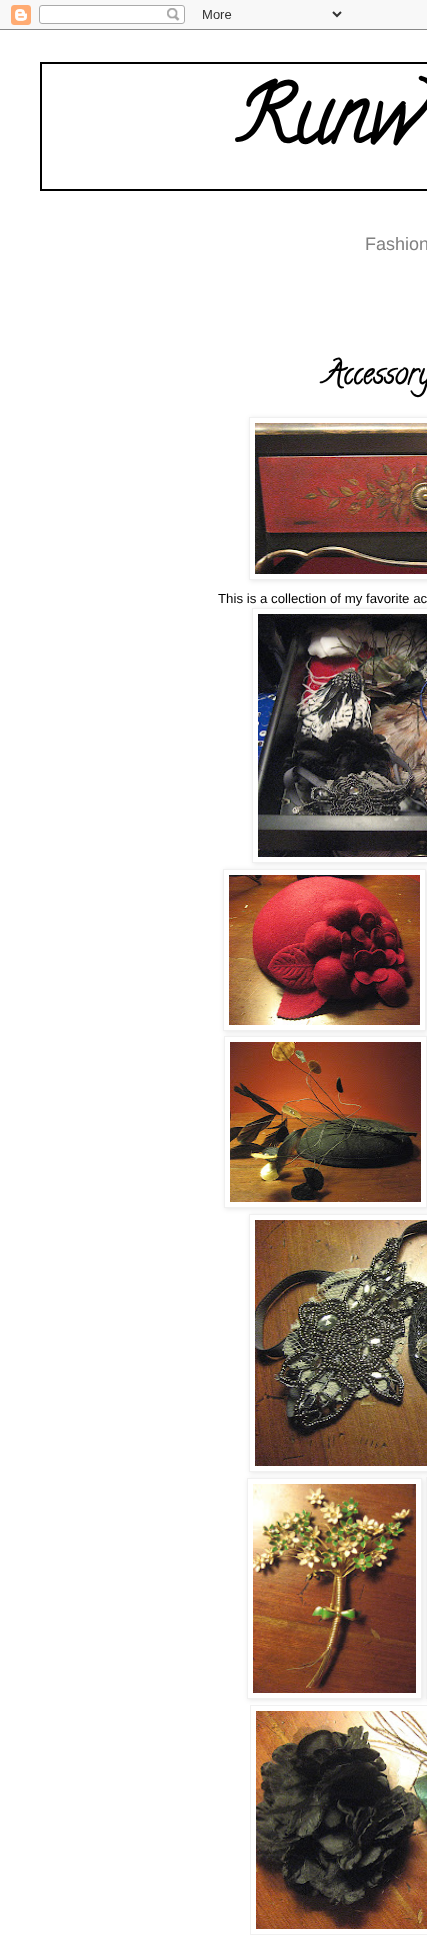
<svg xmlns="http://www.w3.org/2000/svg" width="427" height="1935">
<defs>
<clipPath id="clip1"><path d="M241 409h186v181h-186zm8 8h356v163h-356z" clip-rule="evenodd"/></clipPath>
<clipPath id="clip2"><path d="M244 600h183v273h-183zm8 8h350v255h-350z" clip-rule="evenodd"/></clipPath>
<clipPath id="clip3"><path d="M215 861h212v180h-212zm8 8h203v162h-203z" clip-rule="evenodd"/></clipPath>
<clipPath id="clip4"><path d="M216 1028h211v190h-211zm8 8h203v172h-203z" clip-rule="evenodd"/></clipPath>
<clipPath id="clip5"><path d="M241 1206h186v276h-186zm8 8h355v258h-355z" clip-rule="evenodd"/></clipPath>
<clipPath id="clip6"><path d="M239 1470h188v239h-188zm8 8h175v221h-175z" clip-rule="evenodd"/></clipPath>
</defs>
<rect width="100%" height="100%" fill="#f3f3f3"/>
<image x="0" y="0" width="427" height="30" href="media/1.png"/>
<rect y="30" width="427" height="1905" fill="#fff"/>
<rect x="41" y="63" width="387" height="127" fill="none" stroke="#000" stroke-width="2"/>
<text x="235" y="141" style="font-family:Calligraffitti;font-size:80px;font-weight:bold;fill:#000">Runw</text>
<text x="365" y="250" style="font-family:Liberation Sans;font-size:18px;fill:#818181">Fashion</text>
<text x="324" y="383" style="font-family:Calligraffitti;font-size:30px;font-weight:bold;fill:#000">Accessory</text>
<g clip-path="url(#clip1)">
<rect x="250" y="418" width="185" height="163" fill="#0000001a" filter="blur(2.5px)"/>
</g>
<rect x="249.5" y="417.5" width="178" height="162" fill="none" stroke="#f0f0f0"/>
<image x="255" y="423" width="172" height="151" href="media/2.png"/>
<text x="218" y="603" style="font-family:Liberation Sans;font-size:13.25px;fill:#000">This is a collection of my favorite ac</text>
<g clip-path="url(#clip2)">
<rect x="253" y="609" width="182" height="255" fill="#0000001a" filter="blur(2.5px)"/>
</g>
<rect x="252.5" y="608.5" width="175" height="254" fill="none" stroke="#f0f0f0"/>
<image x="258" y="614" width="169" height="243" href="media/3.png"/>
<g clip-path="url(#clip3)">
<rect x="224" y="870" width="203" height="162" fill="#0000001a" filter="blur(2.5px)"/>
</g>
<rect x="223.5" y="869.5" width="202" height="161" fill="none" stroke="#f0f0f0"/>
<image x="229" y="875" width="191" height="150" href="media/4.png"/>
<g clip-path="url(#clip4)">
<rect x="225" y="1037" width="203" height="172" fill="#0000001a" filter="blur(2.5px)"/>
</g>
<rect x="224.5" y="1036.5" width="202" height="171" fill="none" stroke="#f0f0f0"/>
<image x="230" y="1042" width="191" height="160" href="media/5.png"/>
<g clip-path="url(#clip5)">
<rect x="250" y="1215" width="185" height="258" fill="#0000001a" filter="blur(2.5px)"/>
</g>
<rect x="249.5" y="1214.5" width="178" height="257" fill="none" stroke="#f0f0f0"/>
<image x="255" y="1220" width="172" height="246" href="media/6.png"/>
<g clip-path="url(#clip6)">
<rect x="248" y="1479" width="175" height="221" fill="#0000001a" filter="blur(2.5px)"/>
</g>
<rect x="247.5" y="1478.5" width="174" height="220" fill="none" stroke="#f0f0f0"/>
<rect x="427" y="1478" width="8" height="222" fill="#0000001a" filter="blur(2.5px)"/>
<rect x="426.5" y="1477.5" width="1" height="221" fill="none" stroke="#f0f0f0"/>
<image x="253" y="1484" width="163" height="209" href="media/7.png"/>
<rect x="250.5" y="1705.5" width="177" height="229" fill="none" stroke="#f0f0f0"/>
<image x="256" y="1711" width="171" height="218" href="media/8.png"/>
</svg>
